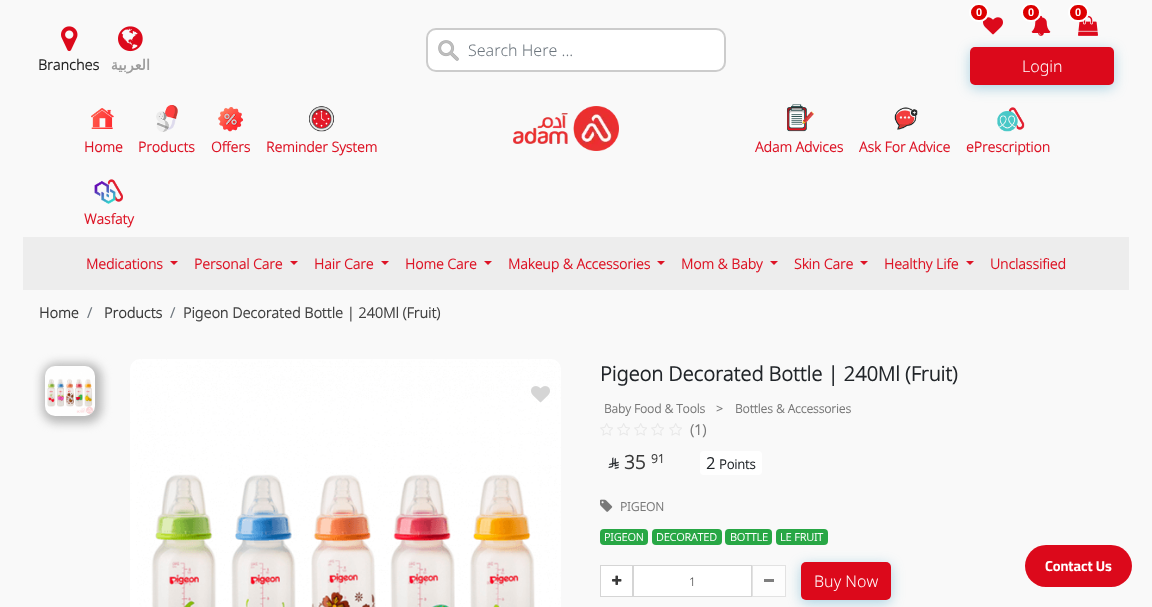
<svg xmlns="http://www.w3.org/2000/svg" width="1152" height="607">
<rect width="100%" height="100%" fill="#f9f9f9"/>
<rect x="428" y="30" width="296" height="40" rx="8" fill="#fff"/>
<image x="438" y="40" width="21" height="21" href="media/1.png"/>
<rect x="427" y="29" width="298" height="42" rx="9" fill="none" stroke="#ccc" stroke-width="2"/>
<text x="468" y="56" style="font-family:Noto Sans;font-size:16px;font-weight:300;fill:#6c757d">Search Here ...</text>
<image x="983" y="17" width="20" height="18" href="media/2.png"/>
<rect x="970" y="4" width="18" height="17" rx="8.5" fill="#d00" stroke="#fff" stroke-width="2"/>
<text x="976" y="16" style="font-family:Liberation Sans;font-size:11px;font-weight:bold;fill:#fff">0</text>
<image x="1031" y="15" width="20" height="21" href="media/3.png"/>
<rect x="1022" y="4" width="18" height="17" rx="8.5" fill="#d00" stroke="#fff" stroke-width="2"/>
<text x="1028" y="16" style="font-family:Liberation Sans;font-size:11px;font-weight:bold;fill:#fff">0</text>
<image x="1078" y="15" width="20" height="21" href="media/4.png"/>
<rect x="1069" y="4" width="19" height="17" rx="8.5" fill="#d00" stroke="#fff" stroke-width="2"/>
<text x="1075" y="16" style="font-family:Liberation Sans;font-size:11px;font-weight:bold;fill:#fff">0</text>
<rect x="970" y="50" width="144" height="38" rx="5" fill="#2a92bd61" filter="blur(6.5px)"/>
<rect x="970" y="47" width="144" height="38" rx="5" fill="#dc091b"/>
<text x="1022" y="72" style="font-family:Noto Sans;font-size:16px;font-weight:300;fill:#fff">Login</text>
<image x="61" y="26" width="17" height="26" href="media/5.png"/>
<text x="38" y="70" style="font-family:Noto Sans;font-size:14.4px;font-weight:bold;fill:#1f1f1f">Branches</text>
<image x="118" y="26" width="25" height="26" href="media/6.png"/>
<text x="150" y="70" style="font-family:DejaVu Sans;font-size:14.4px;font-weight:bold;direction:rtl;fill:#9d9d9d">العربية</text>
<image x="91" y="108" width="23" height="21" href="media/7.png"/>
<text x="84" y="152" style="font-family:Noto Sans;font-size:14px;font-weight:bold;fill:#dd1526">Home</text>
<image x="156" y="105" width="22" height="27" href="media/8.png"/>
<text x="138" y="152" style="font-family:Noto Sans;font-size:14px;font-weight:bold;fill:#dd1526">Products</text>
<image x="218" y="107" width="25" height="25" href="media/9.png"/>
<text x="211" y="152" style="font-family:Noto Sans;font-size:14px;font-weight:bold;fill:#dd1526">Offers</text>
<image x="309" y="106" width="25" height="26" href="media/10.png"/>
<text x="266" y="152" style="font-family:Noto Sans;font-size:14px;font-weight:bold;fill:#dd1526">Reminder System</text>
<image x="513" y="106" width="106" height="45" href="media/11.png"/>
<image x="787" y="104" width="27" height="28" href="media/12.png"/>
<text x="755" y="152" style="font-family:Noto Sans;font-size:14px;font-weight:bold;fill:#dd1526">Adam Advices</text>
<image x="894" y="107" width="24" height="23" href="media/13.png"/>
<text x="859" y="152" style="font-family:Noto Sans;font-size:14px;font-weight:bold;fill:#dd1526">Ask For Advice</text>
<image x="997" y="107" width="28" height="25" href="media/14.png"/>
<text x="966" y="152" style="font-family:Noto Sans;font-size:14px;font-weight:bold;fill:#dd1526">ePrescription</text>
<image x="94" y="179" width="29" height="25" href="media/15.png"/>
<text x="84" y="224" style="font-family:Noto Sans;font-size:14px;font-weight:bold;fill:#dd1526">Wasfaty</text>
<rect x="23" y="237" width="1106" height="53" fill="#ededed"/>
<text x="86" y="269" style="font-family:Noto Sans;font-size:14px;font-weight:bold;fill:#dd1526">Medications</text>
<path d="M170 261h8l-4 4z" fill="#dd1426"/>
<text x="194" y="269" style="font-family:Noto Sans;font-size:14px;font-weight:bold;fill:#dd1526">Personal Care</text>
<path d="M290 261h8l-4 4z" fill="#dd1426"/>
<text x="314" y="269" style="font-family:Noto Sans;font-size:14px;font-weight:bold;fill:#dd1526">Hair Care</text>
<path d="M381 261h8l-4 4z" fill="#dd1426"/>
<text x="405" y="269" style="font-family:Noto Sans;font-size:14px;font-weight:bold;fill:#dd1526">Home Care</text>
<path d="M484 261h8l-4 4z" fill="#dd1426"/>
<text x="508" y="269" style="font-family:Noto Sans;font-size:14px;font-weight:bold;fill:#dd1526">Makeup &amp; Accessories</text>
<path d="M657 261h8l-4 4z" fill="#dd1426"/>
<text x="681" y="269" style="font-family:Noto Sans;font-size:14px;font-weight:bold;fill:#dd1526">Mom &amp; Baby</text>
<path d="M770 261h8l-4 4z" fill="#dd1426"/>
<text x="794" y="269" style="font-family:Noto Sans;font-size:14px;font-weight:bold;fill:#dd1526">Skin Care</text>
<path d="M860 261h8l-4 4z" fill="#dd1426"/>
<text x="884" y="269" style="font-family:Noto Sans;font-size:14px;font-weight:bold;fill:#dd1526">Healthy Life</text>
<path d="M966 261h8l-4 4z" fill="#dd1426"/>
<text x="990" y="269" style="font-family:Noto Sans;font-size:14px;font-weight:bold;fill:#dd1526">Unclassified</text>
<text x="39" y="318" style="font-family:Noto Sans;font-size:14.4px;font-weight:bold;fill:#3a3a3a">Home</text>
<text x="87" y="318" style="font-family:Noto Sans;font-size:14.4px;font-weight:bold;fill:#6c757d">/</text>
<text x="104" y="318" style="font-family:Noto Sans;font-size:14.4px;font-weight:bold;fill:#3a3a3a">Products</text>
<text x="170" y="318" style="font-family:Noto Sans;font-size:14.4px;font-weight:bold;fill:#6c757d">/</text>
<text x="183" y="318" style="font-family:Noto Sans;font-size:14.4px;font-weight:bold;fill:#414141">Pigeon Decorated Bottle | 240Ml (Fruit)</text>
<rect x="42" y="363" width="60" height="60" rx="15" fill="#b8b8b8" filter="blur(5px)"/>
<image x="45" y="366" width="50" height="50" href="media/16.png"/>
<image x="130" y="359" width="431" height="248" href="media/17.png"/>
<image x="531" y="386" width="19" height="17" href="media/18.png"/>
<text x="600" y="381" style="font-family:Noto Sans;font-size:20px;font-weight:bold;fill:#212529">Pigeon Decorated Bottle | 240Ml (Fruit)</text>
<text x="604" y="413" style="font-family:Noto Sans;font-size:12px;font-weight:bold;fill:#797979">Baby Food &amp; Tools</text>
<text x="716" y="413" style="font-family:Noto Sans;font-size:12px;font-weight:bold;fill:#797979">&gt;</text>
<text x="735" y="413" style="font-family:Noto Sans;font-size:12px;font-weight:bold;fill:#797979">Bottles &amp; Accessories</text>
<image x="600" y="423" width="13" height="13" href="media/19.png"/>
<image x="617" y="423" width="13" height="13" href="media/19.png"/>
<image x="634" y="423" width="13" height="13" href="media/19.png"/>
<image x="651" y="423" width="13" height="13" href="media/19.png"/>
<image x="669" y="423" width="13" height="13" href="media/19.png"/>
<text x="690" y="435" style="font-family:Noto Sans;font-size:14.4px;font-weight:bold;fill:#797979">(1)</text>
<image x="608" y="457" width="11" height="12" href="media/20.png"/>
<text x="624" y="469" style="font-family:Noto Sans;font-size:19px;font-weight:bold;fill:#3a3a3a">35</text>
<text x="651" y="463" style="font-family:Noto Sans;font-size:12px;font-weight:bold;fill:#3a3a3a">91</text>
<rect x="700" y="451" width="62" height="24" rx="4" fill="#fff"/>
<text x="706" y="469" style="font-family:Noto Sans;font-size:16px;font-weight:bold;fill:#212529">2</text>
<text x="719" y="469" style="font-family:Noto Sans;font-size:13px;font-weight:bold;fill:#212529">Points</text>
<image x="600" y="499" width="13" height="13" href="media/21.png"/>
<text x="620" y="511" style="font-family:Noto Sans;font-size:12px;font-weight:bold;fill:#797979">PIGEON</text>
<rect x="600" y="529" width="48" height="16" rx="4" fill="#28a745"/>
<text x="604" y="541" style="font-family:Noto Sans;font-size:10.75px;font-weight:bold;fill:#fff">PIGEON</text>
<rect x="652" y="529" width="70" height="16" rx="4" fill="#28a745"/>
<text x="656" y="541" style="font-family:Noto Sans;font-size:10.75px;font-weight:bold;fill:#fff">DECORATED</text>
<rect x="725" y="529" width="47" height="16" rx="4" fill="#28a745"/>
<text x="730" y="541" style="font-family:Noto Sans;font-size:10.75px;font-weight:bold;fill:#fff">BOTTLE</text>
<rect x="776" y="529" width="52" height="16" rx="4" fill="#28a745"/>
<text x="780" y="541" style="font-family:Noto Sans;font-size:10.75px;font-weight:bold;fill:#fff">LE FRUIT</text>
<rect x="600.5" y="565.5" width="32" height="31" fill="#fff" stroke="#d5d5d5"/>
<image x="612" y="575" width="10" height="10" href="media/22.png"/>
<rect x="633.5" y="565.5" width="118" height="31" fill="#fff" stroke="#d5d5d5"/>
<text x="689" y="586" style="font-family:Noto Sans;font-size:12px;font-weight:300;fill:#3a3a3a">1</text>
<rect x="752.5" y="565.5" width="33" height="31" fill="#fdfdfd" stroke="#e2e2e2"/>
<rect x="764" y="579" width="10" height="3" fill="#7e7e7e"/>
<rect x="801" y="565" width="90" height="38" rx="5" fill="#2a92bd61" filter="blur(6.5px)"/>
<rect x="801" y="562" width="90" height="38" rx="5" fill="#dc091b"/>
<text x="814" y="587" style="font-family:Noto Sans;font-size:16px;font-weight:300;fill:#fff">Buy Now</text>
<rect x="1025" y="545" width="107" height="42" rx="21" fill="#dc091b"/>
<text x="1045" y="571" style="font-family:Cairo;font-size:14.4px;font-weight:bold;fill:#fff">Contact Us</text>
</svg>
